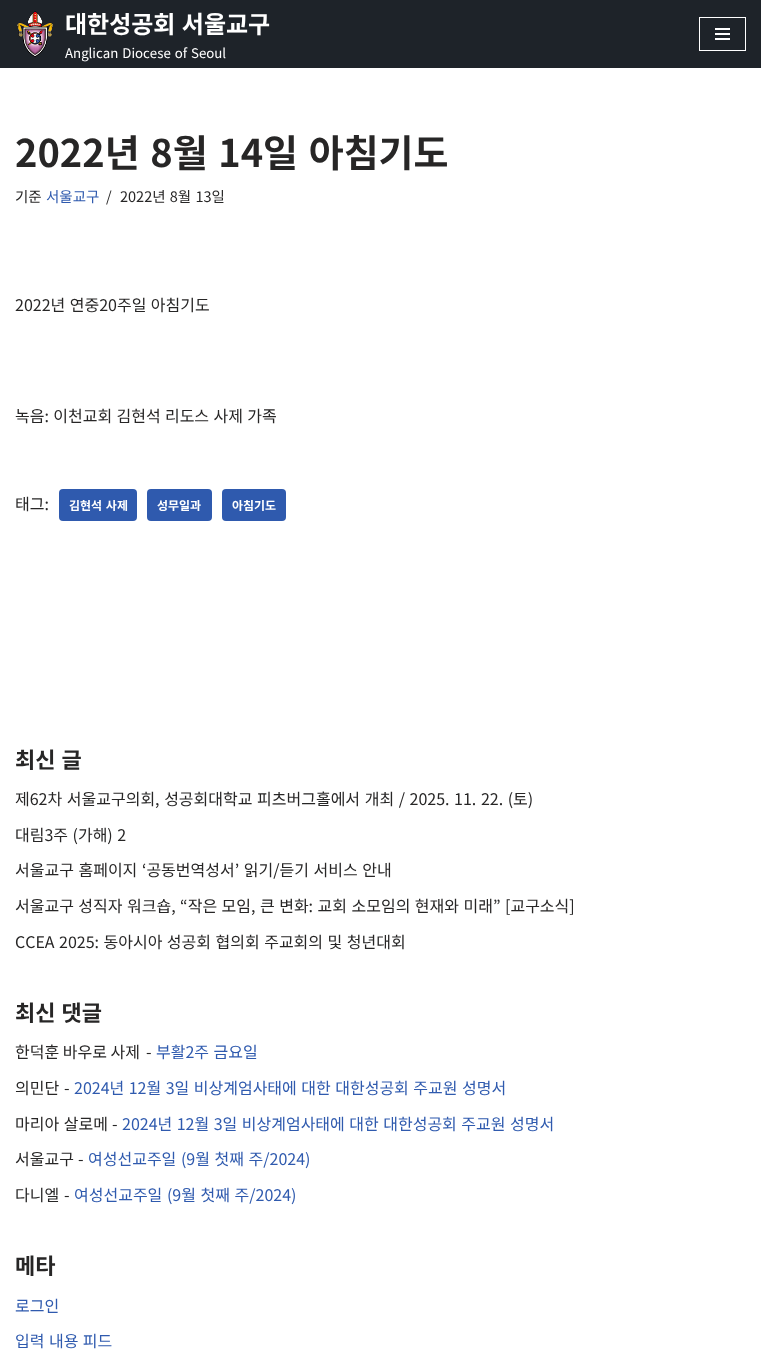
<svg xmlns="http://www.w3.org/2000/svg" width="761" height="1357">
<style>*{font-kerning:none!important;font-variant-ligatures:none!important}</style>
<rect width="100%" height="100%" fill="#fff"/>
<rect width="761" height="68" fill="#1e2329"/>
<image x="17" y="11" width="36" height="47" href="media/1.png"/>
<text x="65" y="33" word-spacing="1" style="font-family:Noto Sans KR;font-size:24px;font-weight:bold;fill:#fff">대한성공회 서울교구</text>
<text x="65" y="58" word-spacing="1" style="font-family:Noto Sans KR;font-size:13.25px;fill:#fff">Anglican Diocese of Seoul</text>
<rect x="699.5" y="17.5" width="46" height="33" fill="none" stroke="#fff"/>
<rect x="715" y="28" width="15" height="2" fill="#fff"/>
<rect x="715" y="33" width="15" height="2" fill="#fff"/>
<rect x="715" y="38" width="15" height="2" fill="#fff"/>
<text x="15" y="167" word-spacing="2" style="font-family:Noto Sans KR;font-size:38px;font-weight:bold;fill:#272626">2022년 8월 14일 아침기도</text>
<text x="15" y="202" style="font-family:Noto Sans KR;font-size:14.5px;fill:#272626">기준</text>
<text x="46" y="202" style="font-family:Noto Sans KR;font-size:14.5px;fill:#2f5aae">서울교구</text>
<text x="106" y="202" style="font-family:Noto Sans KR;font-size:14.5px;fill:#272626">/</text>
<text x="120" y="202" word-spacing="1" style="font-family:Noto Sans KR;font-size:14.5px;fill:#272626">2022년 8월 13일</text>
<text x="15" y="311" word-spacing="0.9" style="font-family:Noto Sans KR;font-size:16px;fill:#272626">2022년 연중20주일 아침기도</text>
<text x="15" y="422" word-spacing="0.75" style="font-family:Noto Sans KR;font-size:16px;fill:#272626">녹음: 이천교회 김현석 리도스 사제 가족</text>
<text x="15" y="510" style="font-family:Noto Sans KR;font-size:16px;fill:#272626">태그:</text>
<rect x="59" y="489" width="78" height="32" rx="4" fill="#2f5aae"/>
<text x="69" y="510" word-spacing="1" style="font-family:Noto Sans KR;font-size:12px;font-weight:bold;fill:#fff">김현석 사제</text>
<rect x="147" y="489" width="65" height="32" rx="4" fill="#2f5aae"/>
<text x="157" y="510" style="font-family:Noto Sans KR;font-size:12px;font-weight:bold;fill:#fff">성무일과</text>
<rect x="222" y="489" width="64" height="32" rx="4" fill="#2f5aae"/>
<text x="232" y="510" style="font-family:Noto Sans KR;font-size:12px;font-weight:bold;fill:#fff">아침기도</text>
<text x="15" y="768" word-spacing="1" style="font-family:Noto Sans KR;font-size:22px;font-weight:bold;fill:#272626">최신 글</text>
<text x="15" y="805" word-spacing="1" style="font-family:Noto Sans KR;font-size:16px;fill:#272626">제62차 서울교구의회, 성공회대학교 피츠버그홀에서 개최 / 2025. 11. 22. (토)</text>
<text x="15" y="841" word-spacing="0.9" style="font-family:Noto Sans KR;font-size:16px;fill:#272626">대림3주 (가해) 2</text>
<text x="15" y="876" word-spacing="1" style="font-family:Noto Sans KR;font-size:16px;fill:#272626">서울교구 홈페이지 ‘공동번역성서’ 읽기/듣기 서비스 안내</text>
<text x="15" y="912" word-spacing="0.9" style="font-family:Noto Sans KR;font-size:16px;fill:#272626">서울교구 성직자 워크숍, “작은 모임, 큰 변화: 교회 소모임의 현재와 미래” [교구소식]</text>
<text x="15" y="948" word-spacing="0.9" style="font-family:Noto Sans KR;font-size:16px;fill:#272626">CCEA 2025: 동아시아 성공회 협의회 주교회의 및 청년대회</text>
<text x="15" y="1021" word-spacing="1" style="font-family:Noto Sans KR;font-size:22px;font-weight:bold;fill:#272626">최신 댓글</text>
<text x="15" y="1058" style="font-family:Noto Sans KR;font-size:16px;fill:#272626">한덕훈 바우로 사제</text>
<text x="146" y="1058" style="font-family:Noto Sans KR;font-size:16px;fill:#272626">-</text>
<text x="156" y="1058" word-spacing="0.9" style="font-family:Noto Sans KR;font-size:16px;fill:#2f5aae">부활2주 금요일</text>
<text x="15" y="1094" style="font-family:Noto Sans KR;font-size:16px;fill:#272626">의민단</text>
<text x="64" y="1094" style="font-family:Noto Sans KR;font-size:16px;fill:#272626">-</text>
<text x="74" y="1094" word-spacing="0.9" style="font-family:Noto Sans KR;font-size:16px;fill:#2f5aae">2024년 12월 3일 비상계엄사태에 대한 대한성공회 주교원 성명서</text>
<text x="15" y="1130" word-spacing="1" style="font-family:Noto Sans KR;font-size:16px;fill:#272626">마리아 살로메</text>
<text x="112" y="1130" style="font-family:Noto Sans KR;font-size:16px;fill:#272626">-</text>
<text x="122" y="1130" word-spacing="0.9" style="font-family:Noto Sans KR;font-size:16px;fill:#2f5aae">2024년 12월 3일 비상계엄사태에 대한 대한성공회 주교원 성명서</text>
<text x="15" y="1165" style="font-family:Noto Sans KR;font-size:16px;fill:#272626">서울교구</text>
<text x="78" y="1165" style="font-family:Noto Sans KR;font-size:16px;fill:#272626">-</text>
<text x="88" y="1165" word-spacing="1" style="font-family:Noto Sans KR;font-size:16px;fill:#2f5aae">여성선교주일 (9월 첫째 주/2024)</text>
<text x="15" y="1201" style="font-family:Noto Sans KR;font-size:16px;fill:#272626">다니엘</text>
<text x="64" y="1201" style="font-family:Noto Sans KR;font-size:16px;fill:#272626">-</text>
<text x="74" y="1201" word-spacing="1" style="font-family:Noto Sans KR;font-size:16px;fill:#2f5aae">여성선교주일 (9월 첫째 주/2024)</text>
<text x="15" y="1274" style="font-family:Noto Sans KR;font-size:22px;font-weight:bold;fill:#272626">메타</text>
<text x="15" y="1312" style="font-family:Noto Sans KR;font-size:16px;fill:#2f5aae">로그인</text>
<text x="15" y="1347" word-spacing="0.9" style="font-family:Noto Sans KR;font-size:16px;fill:#2f5aae">입력 내용 피드</text>
</svg>
